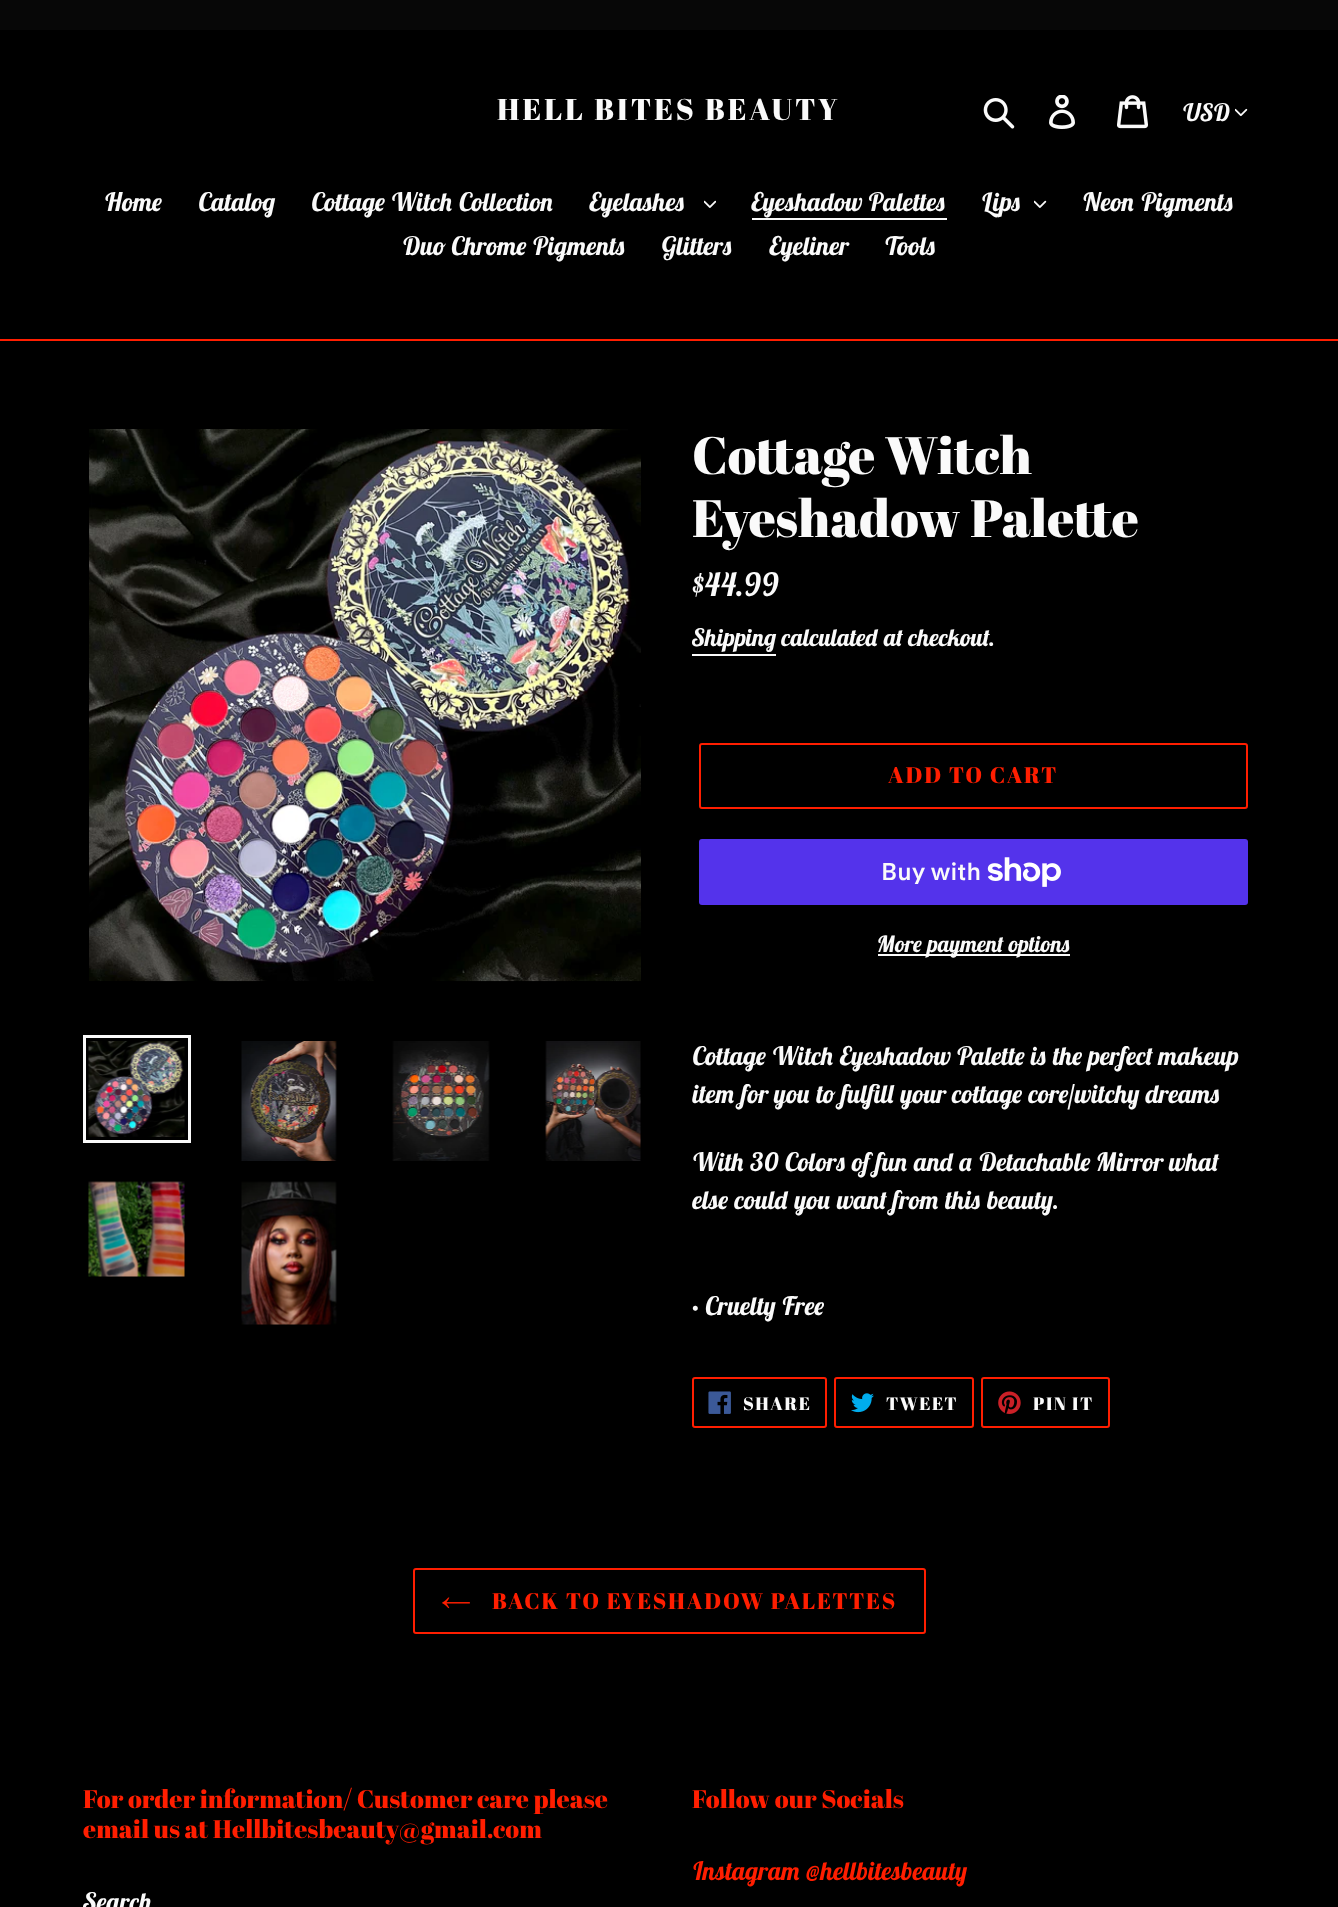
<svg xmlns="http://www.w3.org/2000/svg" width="1338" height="1907">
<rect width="100%" height="100%" fill="#000"/>
<rect width="1338" height="30" fill="#070707"/>
<text x="497" y="120" style="font-family:Abril Fatface;font-size:30px;letter-spacing:3px;fill:#fafafa">HELL BITES BEAUTY</text>
<image x="983" y="98" width="32" height="31" href="media/1.png"/>
<image x="1049" y="95" width="26" height="34" href="media/2.png"/>
<image x="1117" y="95" width="31" height="34" href="media/3.png"/>
<text x="1182" y="121" style="font-family:Lobster Two;font-size:24px;font-weight:bold;font-style:italic;fill:#fafafa">USD</text>
<image x="1235" y="108" width="13" height="9" href="media/4.png"/>
<rect y="339" width="1338" height="2" fill="#ff1e00"/>
<text x="104" y="211" style="font-family:Lobster Two;font-size:25.5px;font-weight:bold;font-style:italic;fill:#fafafa">Home</text>
<text x="198" y="211" style="font-family:Lobster Two;font-size:25.5px;font-weight:bold;font-style:italic;fill:#fafafa">Catalog</text>
<text x="311" y="211" style="font-family:Lobster Two;font-size:25.5px;font-weight:bold;font-style:italic;fill:#fafafa">Cottage Witch Collection</text>
<text x="589" y="211" style="font-family:Lobster Two;font-size:25.5px;font-weight:bold;font-style:italic;fill:#fafafa">Eyelashes</text>
<image x="704" y="200" width="12" height="8" href="media/5.png"/>
<text x="751" y="211" style="font-family:Lobster Two;font-size:25.5px;font-weight:bold;font-style:italic;fill:#fafafa">Eyeshadow Palettes</text>
<rect x="752" y="218" width="195" height="2" fill="#fafafa"/>
<text x="981" y="211" style="font-family:Lobster Two;font-size:25.5px;font-weight:bold;font-style:italic;fill:#fafafa">Lips</text>
<image x="1034" y="200" width="13" height="8" href="media/6.png"/>
<text x="1082" y="211" style="font-family:Lobster Two;font-size:25.5px;font-weight:bold;font-style:italic;fill:#fafafa">Neon Pigments</text>
<text x="402" y="255" style="font-family:Lobster Two;font-size:25.5px;font-weight:bold;font-style:italic;fill:#fafafa">Duo Chrome Pigments</text>
<text x="661" y="255" style="font-family:Lobster Two;font-size:25.5px;font-weight:bold;font-style:italic;fill:#fafafa">Glitters</text>
<text x="769" y="255" style="font-family:Lobster Two;font-size:25.5px;font-weight:bold;font-style:italic;fill:#fafafa">Eyeliner</text>
<text x="884" y="255" style="font-family:Lobster Two;font-size:25.5px;font-weight:bold;font-style:italic;fill:#fafafa">Tools</text>
<image x="89" y="429" width="552" height="553" href="media/7.png"/>
<rect x="84.5" y="1036.5" width="105" height="105" fill="none" stroke="#fafafa" stroke-width="3"/>
<image x="88" y="1041" width="97" height="96" href="media/8.png"/>
<image x="241" y="1041" width="96" height="120" href="media/9.png"/>
<image x="392" y="1041" width="98" height="120" href="media/10.png"/>
<image x="545" y="1041" width="96" height="120" href="media/11.png"/>
<image x="88" y="1181" width="97" height="96" href="media/12.png"/>
<image x="241" y="1181" width="96" height="144" href="media/13.png"/>
<text x="692" y="474" style="font-family:Abril Fatface;font-size:52.5px;fill:#fafafa">Cottage Witch</text>
<text x="692" y="537" style="font-family:Abril Fatface;font-size:52.5px;fill:#fafafa">Eyeshadow Palette</text>
<text x="692" y="596" style="font-family:Lobster Two;font-size:32px;font-weight:bold;font-style:italic;fill:#fafafa">$44.99</text>
<text x="692" y="646" style="font-family:Lobster Two;font-size:24px;font-weight:bold;font-style:italic;fill:#fafafa">Shipping</text>
<rect x="692" y="654" width="84" height="2" fill="#fafafa"/>
<text x="781" y="646" style="font-family:Lobster Two;font-size:24px;font-weight:bold;font-style:italic;fill:#fafafa">calculated at checkout.</text>
<rect x="700" y="744" width="547" height="64" rx="2" fill="none" stroke="#ff1e00" stroke-width="2"/>
<text x="888" y="783" style="font-family:Abril Fatface;font-size:22.5px;letter-spacing:1.8px;fill:#ff1e00">ADD TO CART</text>
<rect x="699" y="839" width="549" height="66" rx="3" fill="#5433eb"/>
<text x="881" y="880" style="font-family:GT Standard;font-size:24px;font-weight:600;fill:#fafafa">Buy with</text>
<image x="987" y="857" width="74" height="30" href="media/14.png"/>
<rect x="878" y="954" width="192" height="2" fill="#fafafa"/>
<text x="877" y="952" style="font-family:Lobster Two;font-size:22.5px;font-weight:bold;font-style:italic;fill:#fafafa">More payment options</text>
<text x="692" y="1065" style="font-family:Lobster Two;font-size:25.5px;font-weight:bold;font-style:italic;fill:#fafafa">Cottage Witch Eyeshadow Palette is the perfect makeup</text>
<text x="692" y="1103" style="font-family:Lobster Two;font-size:25.5px;font-weight:bold;font-style:italic;fill:#fafafa">item for you to fulfill your cottage core/witchy dreams</text>
<text x="692" y="1171" style="font-family:Lobster Two;font-size:25.5px;font-weight:bold;font-style:italic;fill:#fafafa">With 30 Colors of fun and a Detachable Mirror what</text>
<text x="692" y="1209" style="font-family:Lobster Two;font-size:25.5px;font-weight:bold;font-style:italic;fill:#fafafa">else could you want from this beauty.</text>
<text x="692" y="1315" style="font-family:Lobster Two;font-size:25.5px;font-weight:bold;font-style:italic;fill:#fafafa">• Cruelty Free</text>
<rect x="693" y="1378" width="133" height="49" rx="2" fill="none" stroke="#ff1e00" stroke-width="2"/>
<image x="708" y="1391" width="23" height="23" href="media/15.png"/>
<text x="743" y="1410" style="font-family:Abril Fatface;font-size:18px;letter-spacing:1.5px;fill:#fafafa">SHARE</text>
<rect x="835" y="1378" width="138" height="49" rx="2" fill="none" stroke="#ff1e00" stroke-width="2"/>
<image x="851" y="1393" width="23" height="20" href="media/16.png"/>
<text x="886" y="1410" style="font-family:Abril Fatface;font-size:18px;letter-spacing:1.5px;fill:#fafafa">TWEET</text>
<rect x="982" y="1378" width="127" height="49" rx="2" fill="none" stroke="#ff1e00" stroke-width="2"/>
<image x="998" y="1391" width="23" height="23" href="media/17.png"/>
<text x="1033" y="1410" style="font-family:Abril Fatface;font-size:18px;letter-spacing:1.5px;fill:#fafafa">PIN IT</text>
<rect x="414" y="1569" width="511" height="64" rx="2" fill="none" stroke="#ff1e00" stroke-width="2"/>
<image x="442" y="1597" width="28" height="12" href="media/18.png"/>
<text x="492" y="1609" style="font-family:Abril Fatface;font-size:22.5px;letter-spacing:1.8px;fill:#ff1e00">BACK TO EYESHADOW PALETTES</text>
<text x="83" y="1808" style="font-family:Abril Fatface;font-size:25.5px;fill:#ff1e00">For order information/ Customer care please</text>
<text x="83" y="1838" style="font-family:Abril Fatface;font-size:25.5px;fill:#ff1e00">email us at Hellbitesbeauty@gmail.com</text>
<text x="83" y="1911" style="font-family:Lobster Two;font-size:25.5px;font-weight:bold;font-style:italic;fill:#fafafa">Search</text>
<text x="692" y="1808" style="font-family:Abril Fatface;font-size:25.5px;fill:#ff1e00">Follow our Socials</text>
<text x="692" y="1880" style="font-family:Lobster Two;font-size:25.5px;font-weight:bold;font-style:italic;fill:#ff1e00">Instagram @hellbitesbeauty</text>
</svg>
